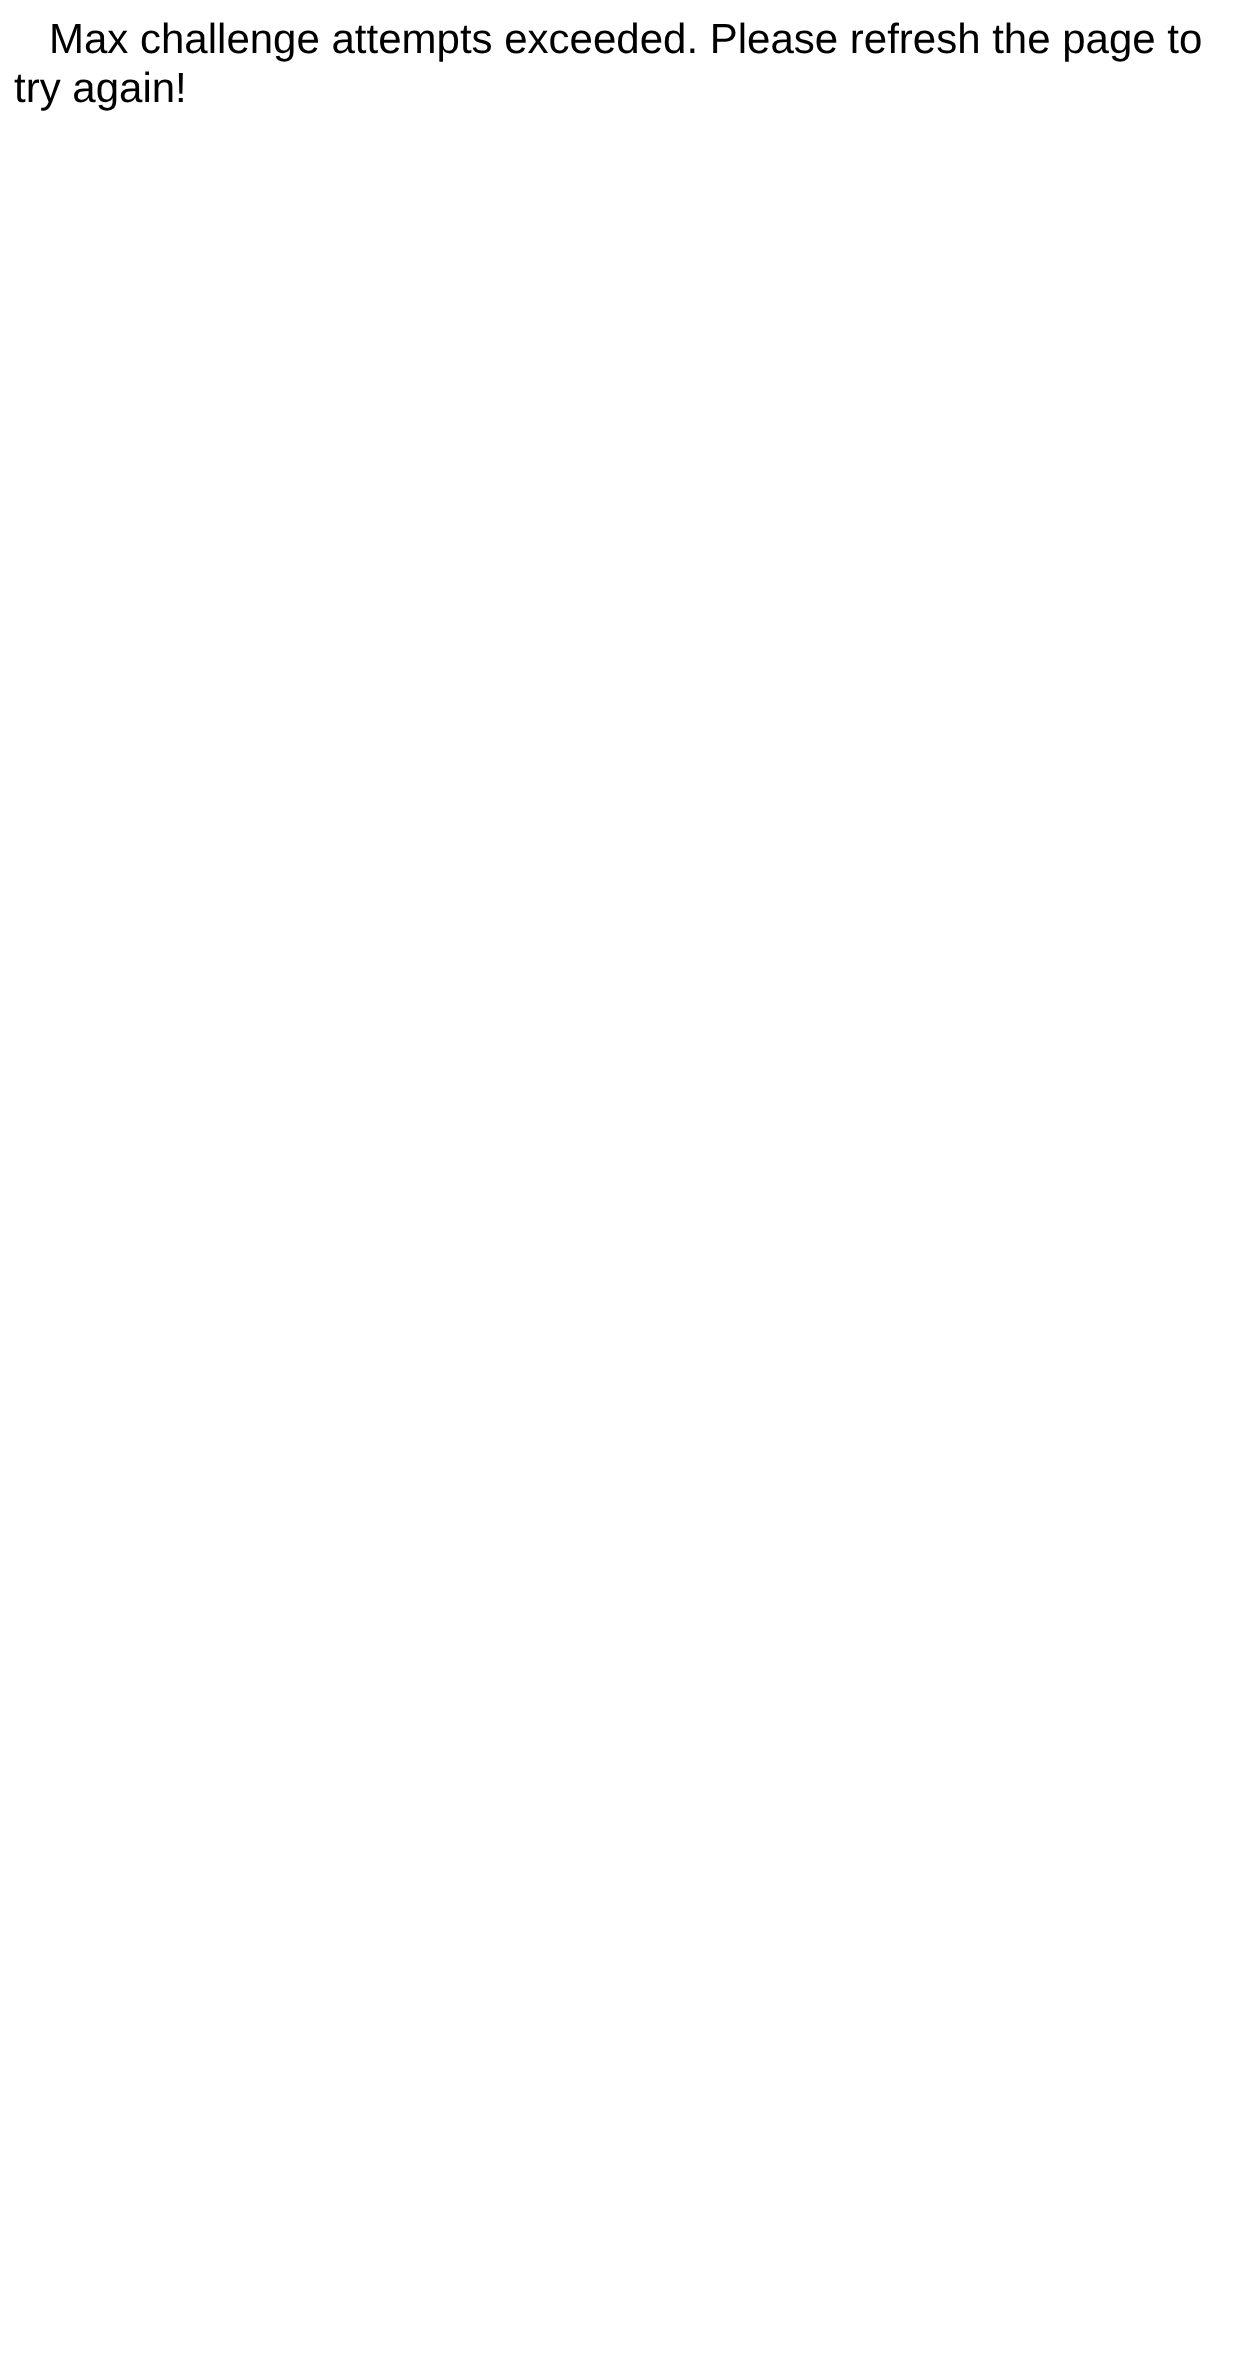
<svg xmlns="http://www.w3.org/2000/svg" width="1241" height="2378">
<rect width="100%" height="100%" fill="#fff"/>
<text x="49" y="53" style="font-family:Liberation Sans;font-size:42px;fill:#000">Max challenge attempts exceeded. Please refresh the page to</text>
<text x="14" y="102" style="font-family:Liberation Sans;font-size:42px;fill:#000">try again!</text>
</svg>
